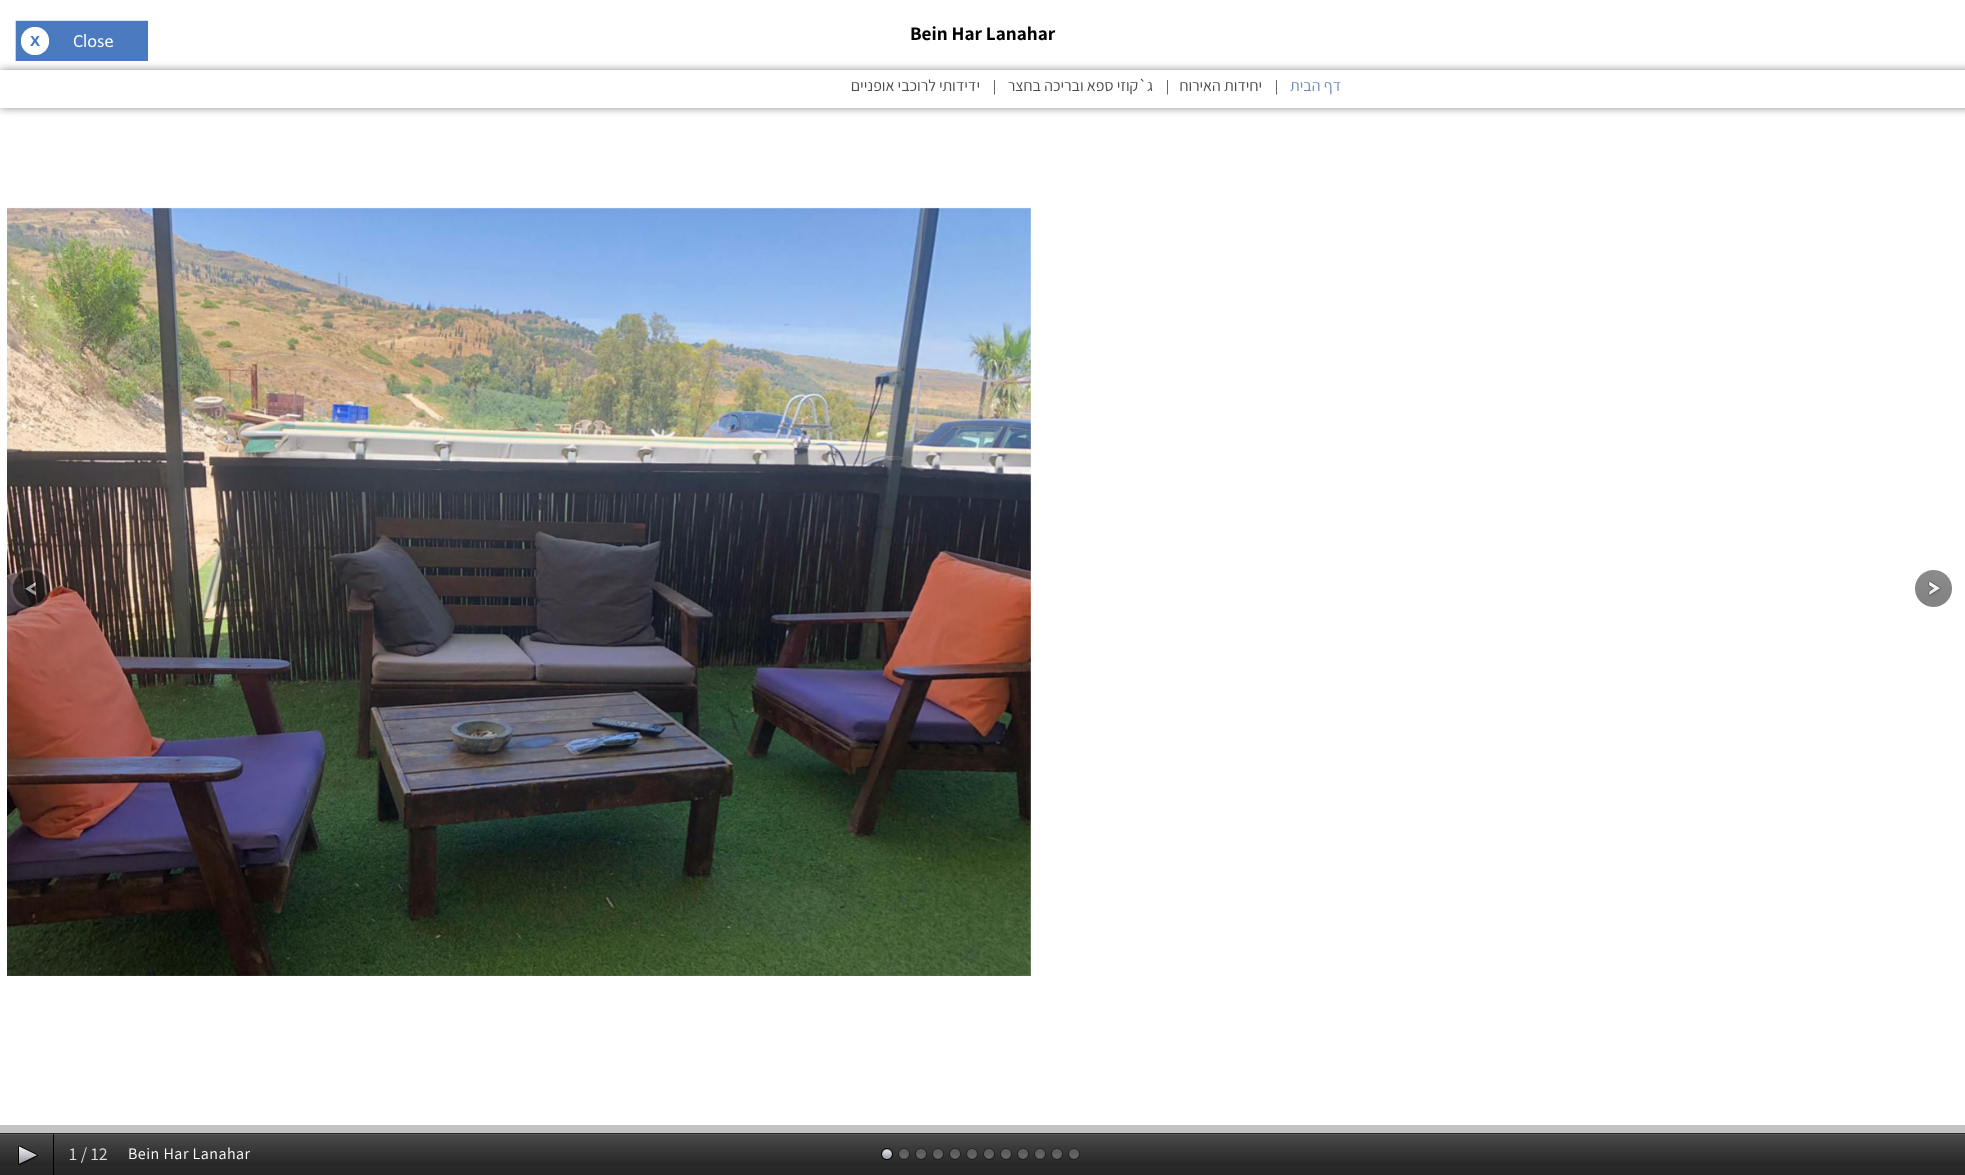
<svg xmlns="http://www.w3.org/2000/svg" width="1965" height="1175">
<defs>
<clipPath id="clip1"><path d="M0 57h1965v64h-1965zm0 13h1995v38h-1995z" clip-rule="evenodd"/></clipPath>
</defs>
<rect width="100%" height="100%" fill="#fff"/>
<text x="910" y="40" style="font-family:Assistant;font-size:19.25px;font-weight:bold;fill:#000">Bein Har Lanahar</text>
<image x="15" y="20" width="133" height="41" href="media/1.png"/>
<g clip-path="url(#clip1)">
<rect y="70" width="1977" height="38" fill="#8c8c8c" filter="blur(4px)"/>
</g>
<text x="1341" y="91" style="font-family:Assistant;font-size:16px;direction:rtl;fill:#6b8ec2">דף הבית</text>
<text x="1275" y="91" style="font-family:Liberation Serif;font-size:16px;fill:#404040">|</text>
<text x="1262" y="91" style="font-family:Assistant;font-size:16px;direction:rtl;fill:#4c4c4c">יחידות האירוח</text>
<text x="1166" y="91" style="font-family:Liberation Serif;font-size:16px;fill:#404040">|</text>
<text x="1153" y="91" style="font-family:Assistant;font-size:16px;direction:rtl;fill:#4c4c4c">ג`קוזי ספא ובריכה בחצר</text>
<text x="993" y="91" style="font-family:Liberation Serif;font-size:16px;fill:#404040">|</text>
<text x="980" y="91" style="font-family:Assistant;font-size:16px;direction:rtl;fill:#4c4c4c">ידידותי לרוכבי אופניים</text>
<image x="7" y="207" width="1024" height="769" href="media/2.png"/>
<image x="1915" y="570" width="37" height="37" href="media/3.png"/>
<image x="10" y="567" width="43" height="43" href="media/4.png"/>
<rect y="1125" width="1965" height="8" fill="#c3c3c3"/>
<image x="0" y="1133" width="1965" height="42" href="media/5.png"/>
<image x="1068" y="1148" width="12" height="12" href="media/6.png"/>
<image x="1051" y="1148" width="12" height="12" href="media/6.png"/>
<image x="1034" y="1148" width="12" height="12" href="media/6.png"/>
<image x="1017" y="1148" width="12" height="12" href="media/6.png"/>
<image x="1000" y="1148" width="12" height="12" href="media/6.png"/>
<image x="983" y="1148" width="12" height="12" href="media/6.png"/>
<image x="966" y="1148" width="12" height="12" href="media/6.png"/>
<image x="949" y="1148" width="12" height="12" href="media/6.png"/>
<image x="932" y="1148" width="12" height="12" href="media/6.png"/>
<image x="915" y="1148" width="12" height="12" href="media/6.png"/>
<image x="898" y="1148" width="12" height="12" href="media/6.png"/>
<image x="881" y="1148" width="12" height="12" href="media/7.png"/>
<text x="128" y="1159" style="font-family:Assistant;font-size:16px;letter-spacing:0.5px;fill:#fff">Bein Har Lanahar</text>
<text x="69" y="1160" style="font-family:Assistant;font-size:18px;fill:#ddd">1 / 12</text>
<image x="18" y="1134" width="36" height="41" href="media/8.png"/>
</svg>
